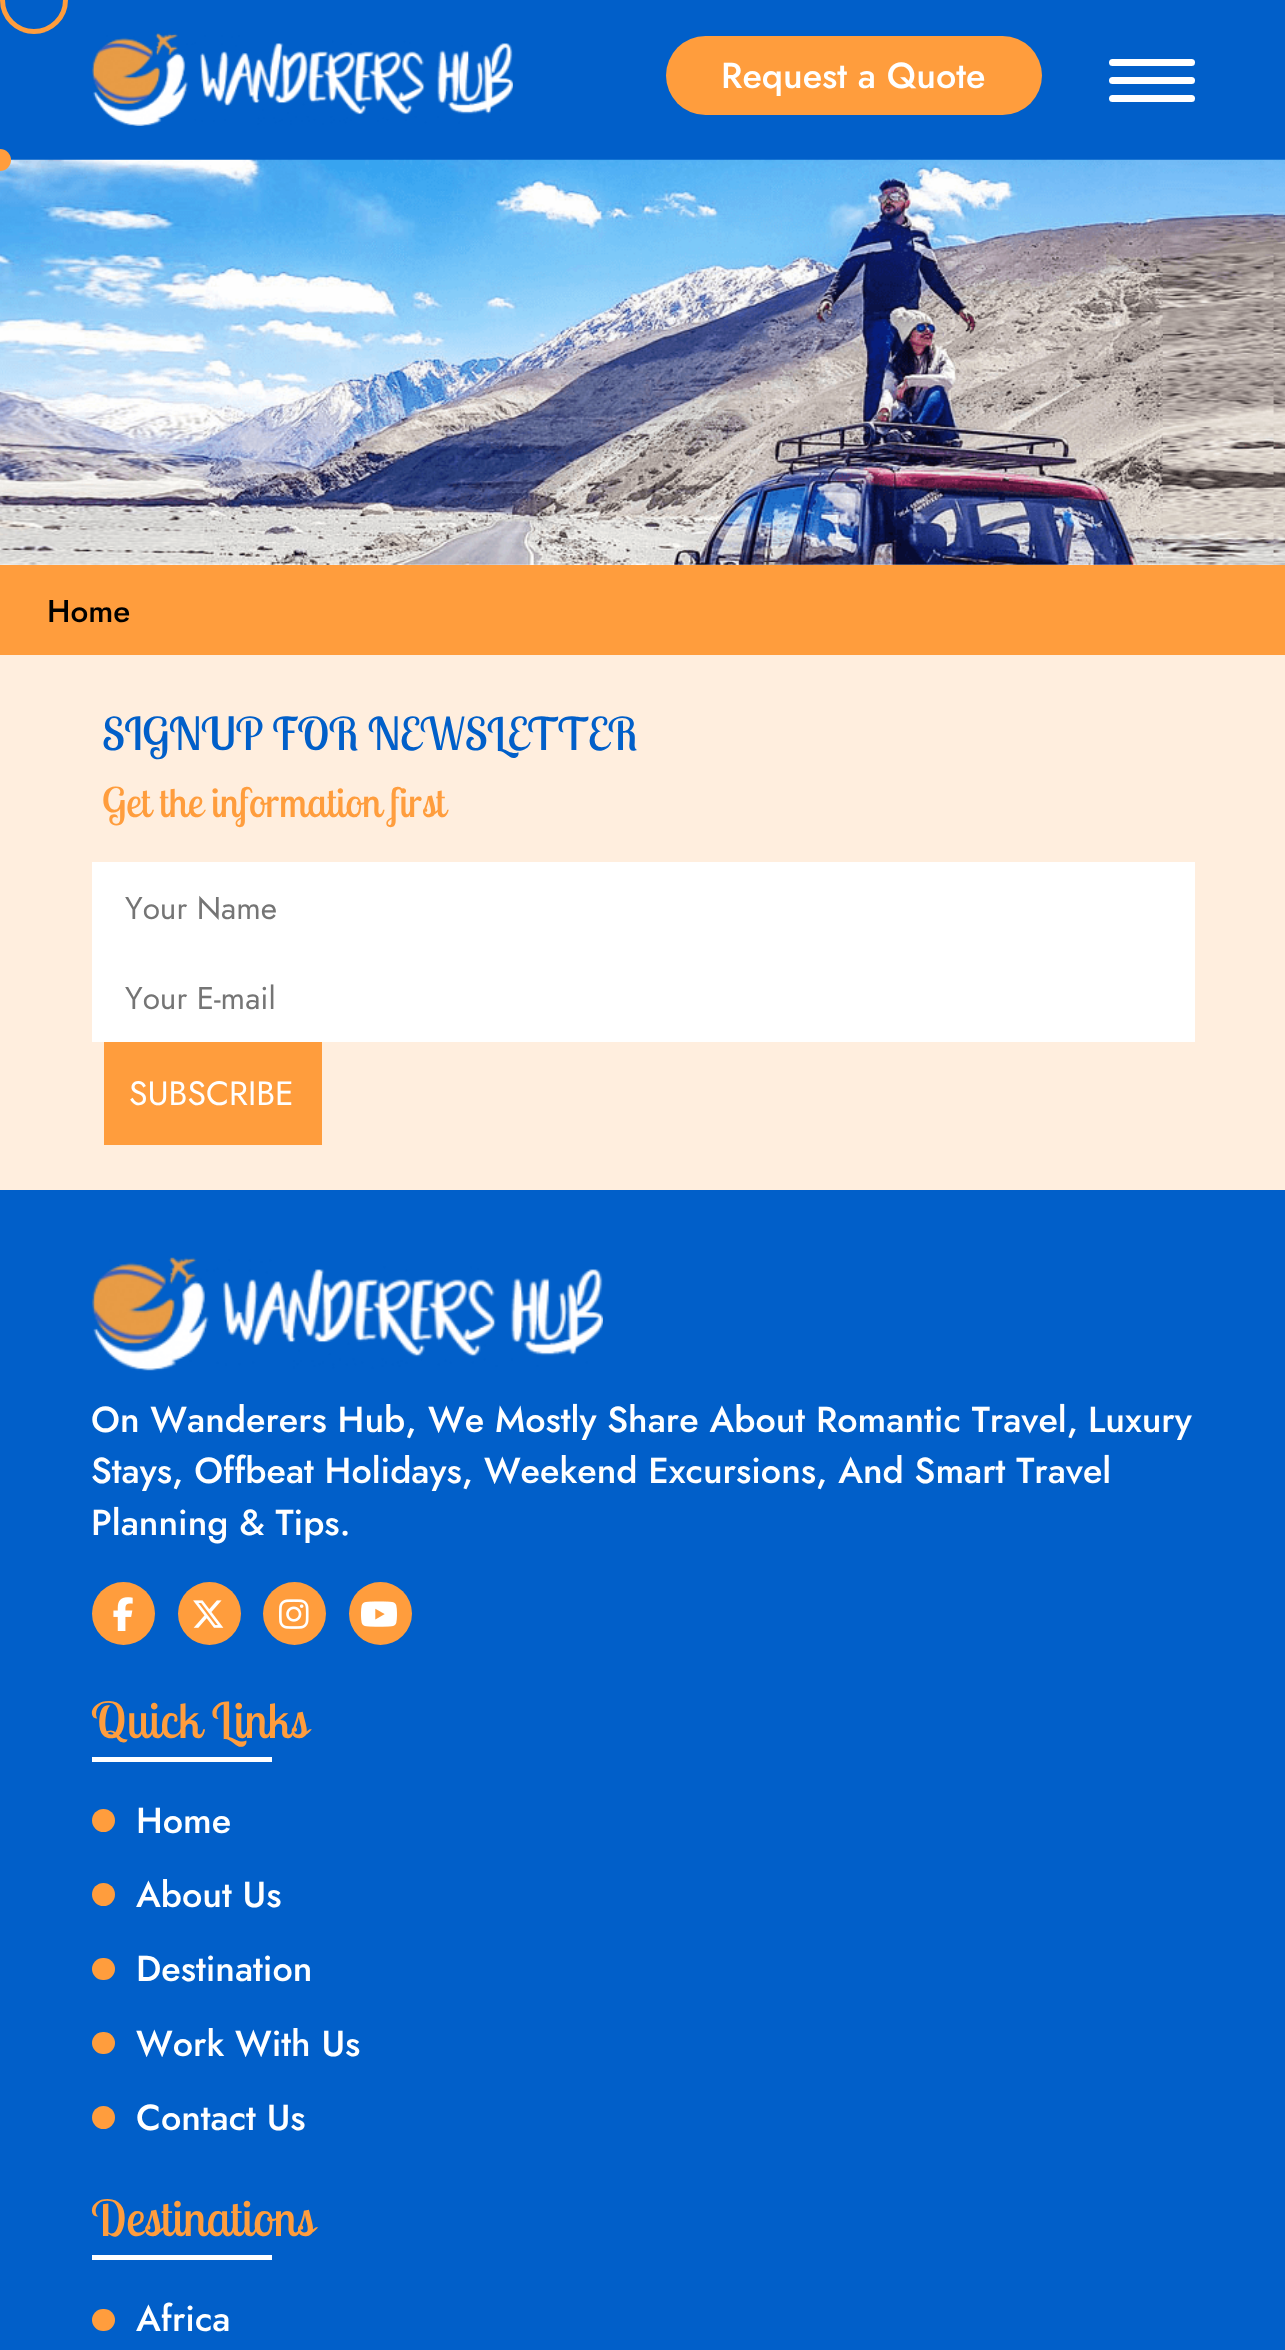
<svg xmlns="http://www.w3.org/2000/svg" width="1285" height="2350">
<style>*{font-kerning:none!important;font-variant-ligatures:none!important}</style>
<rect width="100%" height="100%" fill="#fff"/>
<rect width="1285" height="160" fill="#015fc9"/>
<circle cx="34" cy="0" r="31.5" fill="none" stroke="#ff9d3d" stroke-width="5"/>
<image x="92" y="33" width="421" height="93" href="media/1.png"/>
<rect x="666" y="36" width="376" height="79" rx="39.5" fill="#ff9d3d"/>
<text x="721" y="88" style="font-family:Jost;font-size:36px;font-weight:500;fill:#fff">Request a Quote</text>
<rect x="1109" y="59" width="86" height="7" rx="3.5" fill="#fff"/>
<rect x="1109" y="77" width="86" height="7" rx="3.5" fill="#fff"/>
<rect x="1109" y="95" width="86" height="7" rx="3.5" fill="#fff"/>
<image x="0" y="159" width="1285" height="406" href="media/2.png"/>
<circle cx="0" cy="160" r="11" fill="#ff9d3d"/>
<rect y="565" width="1285" height="90" fill="#ff9d3d"/>
<text x="47" y="622" style="font-family:Jost;font-size:31.5px;font-weight:500;fill:#000">Home</text>
<rect y="655" width="1285" height="535" fill="#ffeede"/>
<text x="102" y="750" style="font-family:Lobster Two;font-size:45px;fill:#015fc9">SIGNUP FOR NEWSLETTER</text>
<text x="102" y="817" style="font-family:Lobster Two;font-size:40.5px;fill:#ff9d3d">Get the information first</text>
<rect x="92" y="862" width="1103" height="180" fill="#fff"/>
<text x="125" y="919" style="font-family:Jost;font-size:31.5px;fill:#757575">Your Name</text>
<text x="125" y="1009" style="font-family:Jost;font-size:31.5px;fill:#757575">Your E-mail</text>
<rect x="104" y="1042" width="218" height="103" fill="#ff9d3d"/>
<text x="129" y="1105" style="font-family:Jost;font-size:33.75px;fill:#fff">SUBSCRIBE</text>
<rect y="1190" width="1285" height="1160" fill="#015fc9"/>
<image x="92" y="1257" width="511" height="114" href="media/3.png"/>
<text x="91" y="1432" style="font-family:Jost;font-size:36px;font-weight:500;fill:#fff">On Wanderers Hub,</text>
<text x="428" y="1432" style="font-family:Jost;font-size:36px;font-weight:500;fill:#fff">We Mostly Share About Romantic Travel,</text>
<text x="1088" y="1432" style="font-family:Jost;font-size:36px;font-weight:500;fill:#fff">Luxury</text>
<text x="91" y="1483" style="font-family:Jost;font-size:36px;font-weight:500;fill:#fff">Stays, Offbeat Holidays, Weekend Excursions, And Smart Travel</text>
<text x="91" y="1535" style="font-family:Jost;font-size:36px;font-weight:500;fill:#fff">Planning &amp; Tips.</text>
<circle cx="123.5" cy="1613.5" r="31.5" fill="#ff9d3d"/>
<image x="113" y="1597" width="20" height="34" href="media/4.png"/>
<circle cx="209.5" cy="1613.5" r="31.5" fill="#ff9d3d"/>
<image x="193" y="1600" width="31" height="28" href="media/5.png"/>
<circle cx="294.5" cy="1613.5" r="31.5" fill="#ff9d3d"/>
<image x="279" y="1599" width="30" height="30" href="media/6.png"/>
<circle cx="380.5" cy="1613.5" r="31.5" fill="#ff9d3d"/>
<image x="361" y="1601" width="36" height="26" href="media/7.png"/>
<text x="91" y="1738" style="font-family:Lobster Two;font-size:49.5px;fill:#ff9d3d">Quick Links</text>
<rect x="92" y="1757" width="180" height="5" fill="#fff"/>
<circle cx="103.5" cy="1820.5" r="11.5" fill="#ff9d3d"/>
<text x="136" y="1833" style="font-family:Jost;font-size:36px;font-weight:500;fill:#fff">Home</text>
<circle cx="103.5" cy="1894.5" r="11.5" fill="#ff9d3d"/>
<text x="136" y="1907" style="font-family:Jost;font-size:36px;font-weight:500;fill:#fff">About Us</text>
<rect x="92" y="1958" width="23" height="22" rx="11" fill="#ff9d3d"/>
<text x="136" y="1981" style="font-family:Jost;font-size:36px;font-weight:500;fill:#fff">Destination</text>
<rect x="92" y="2032" width="23" height="22" rx="11" fill="#ff9d3d"/>
<text x="136" y="2056" style="font-family:Jost;font-size:36px;font-weight:500;fill:#fff">Work With Us</text>
<circle cx="103.5" cy="2117.5" r="11.5" fill="#ff9d3d"/>
<text x="136" y="2130" style="font-family:Jost;font-size:36px;font-weight:500;fill:#fff">Contact Us</text>
<text x="91" y="2236" style="font-family:Lobster Two;font-size:49.5px;fill:#ff9d3d">Destinations</text>
<rect x="92" y="2255" width="180" height="5" fill="#fff"/>
<rect x="92" y="2309" width="23" height="22" rx="11" fill="#ff9d3d"/>
<text x="136" y="2331" style="font-family:Jost;font-size:36px;font-weight:500;fill:#fff">Africa</text>
</svg>
